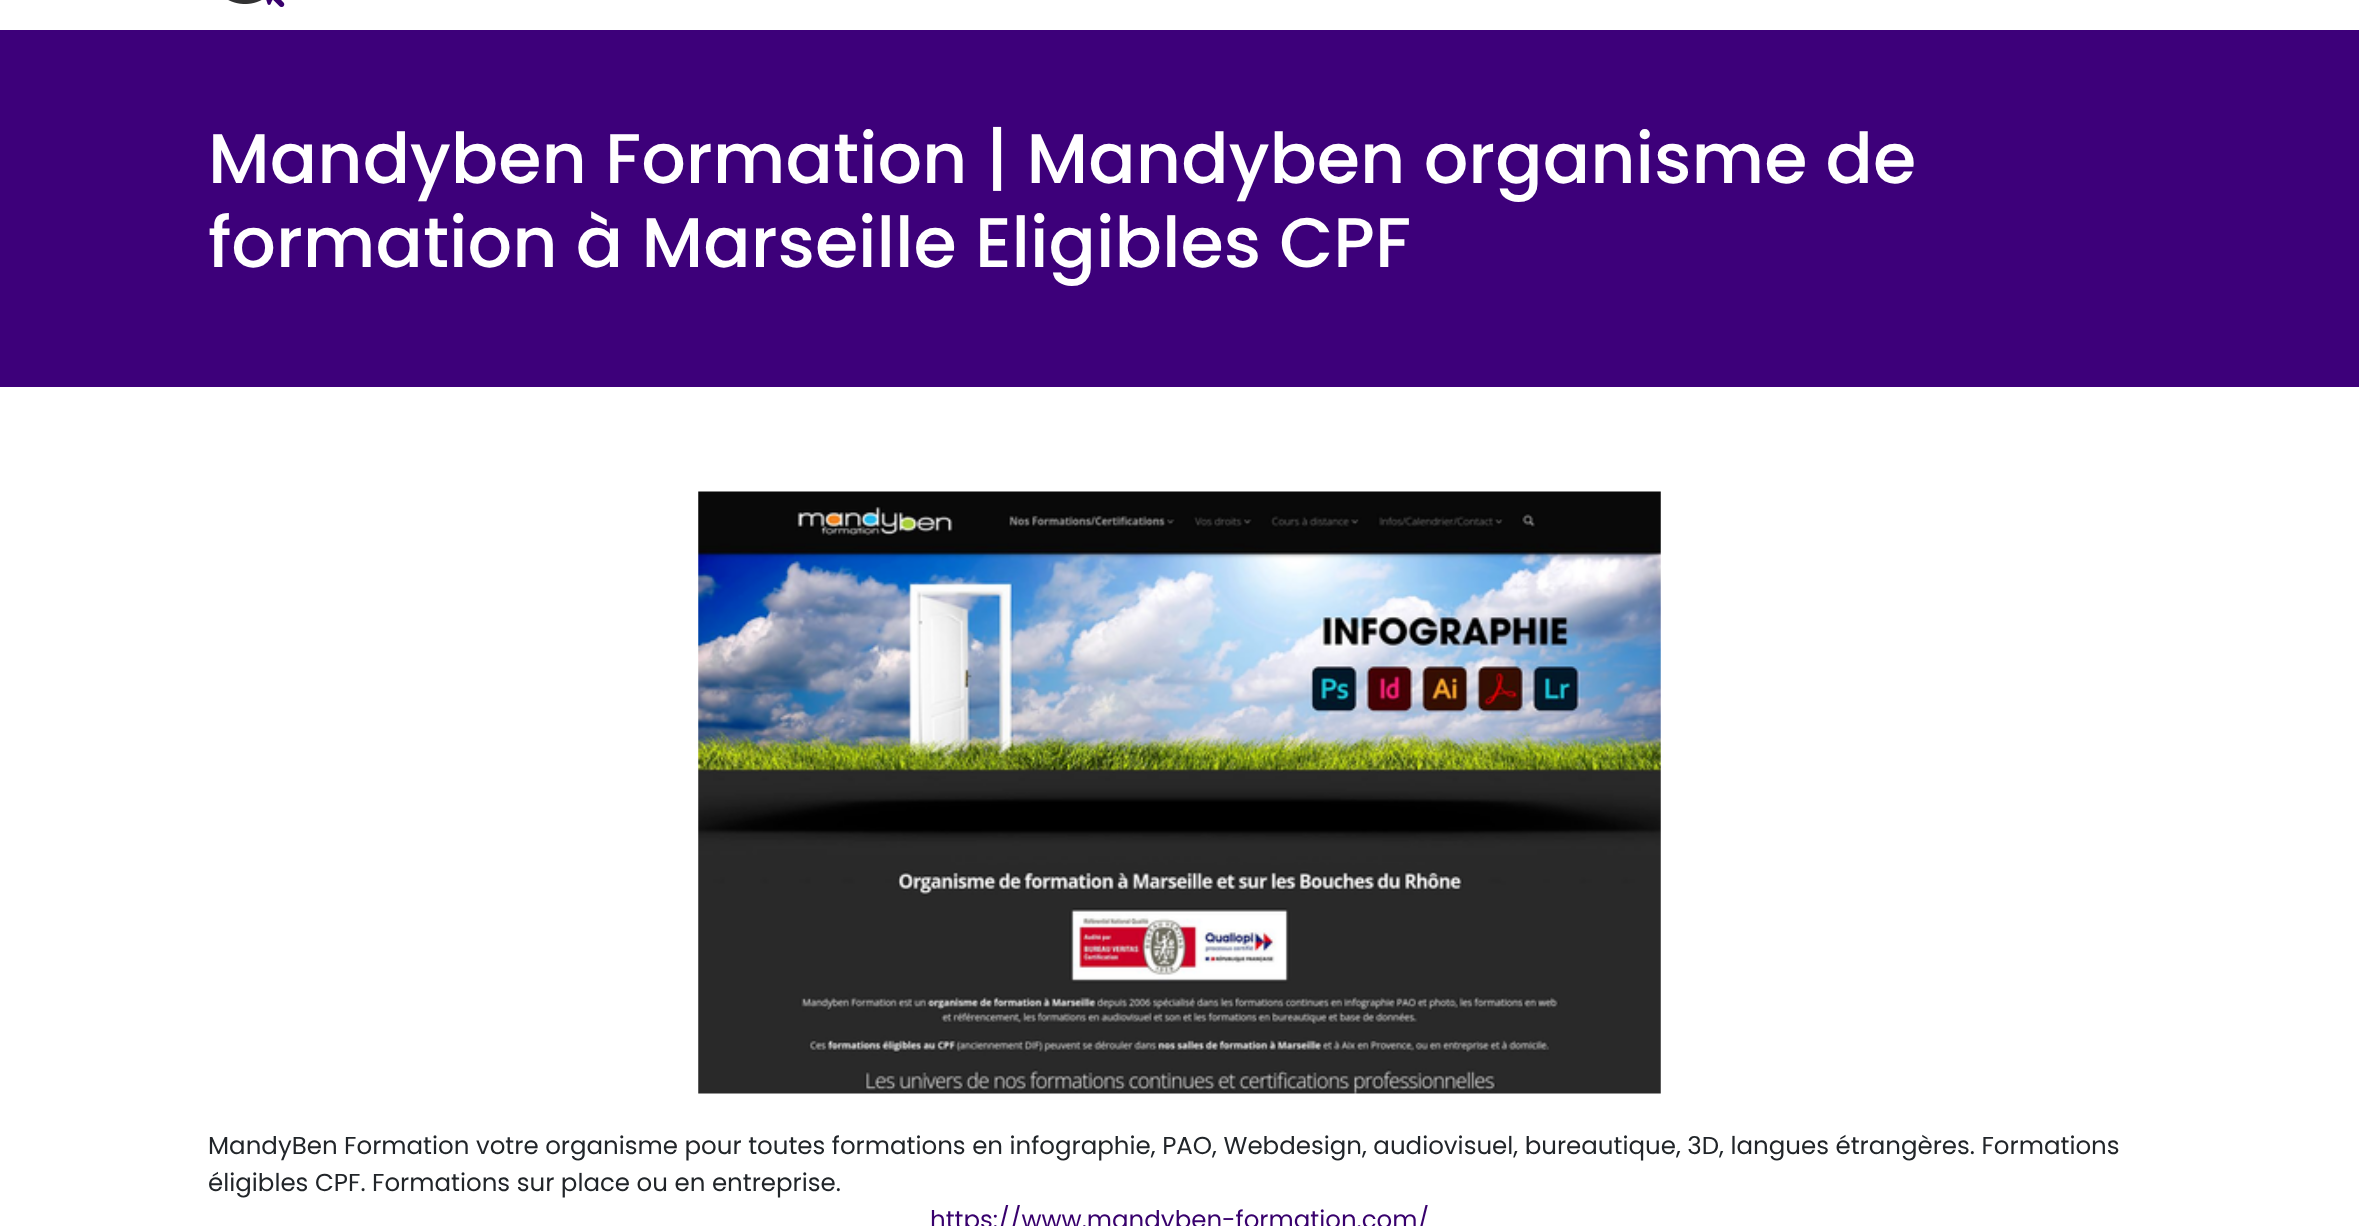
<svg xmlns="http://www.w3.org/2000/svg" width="2359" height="1226">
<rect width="100%" height="100%" fill="#fff"/>
<image x="228" y="0" width="57" height="7" href="media/1.png"/>
<rect y="30" width="2359" height="357" fill="#3d007a"/>
<text x="208" y="183" style="font-family:Poppins;font-size:70px;font-weight:500;fill:#fff">Mandyben Formation | Mandyben organisme de</text>
<text x="208" y="267" style="font-family:Poppins;font-size:70px;font-weight:500;fill:#fff">formation à Marseille Eligibles CPF</text>
<image x="698" y="491" width="963" height="603" href="media/2.png"/>
<text x="208" y="1154" style="font-family:Poppins;font-size:24.5px;fill:#212529">MandyBen Formation votre organisme pour toutes formations en infographie, PAO, Webdesign, audiovisuel, bureautique, 3D, langues étrangères. Formations</text>
<text x="208" y="1191" style="font-family:Poppins;font-size:24.5px;fill:#212529">éligibles CPF. Formations sur place ou en entreprise.</text>
<text x="930" y="1228" style="font-family:Poppins;font-size:24.5px;fill:#38006d">https://www.mandyben-formation.com/</text>
</svg>
